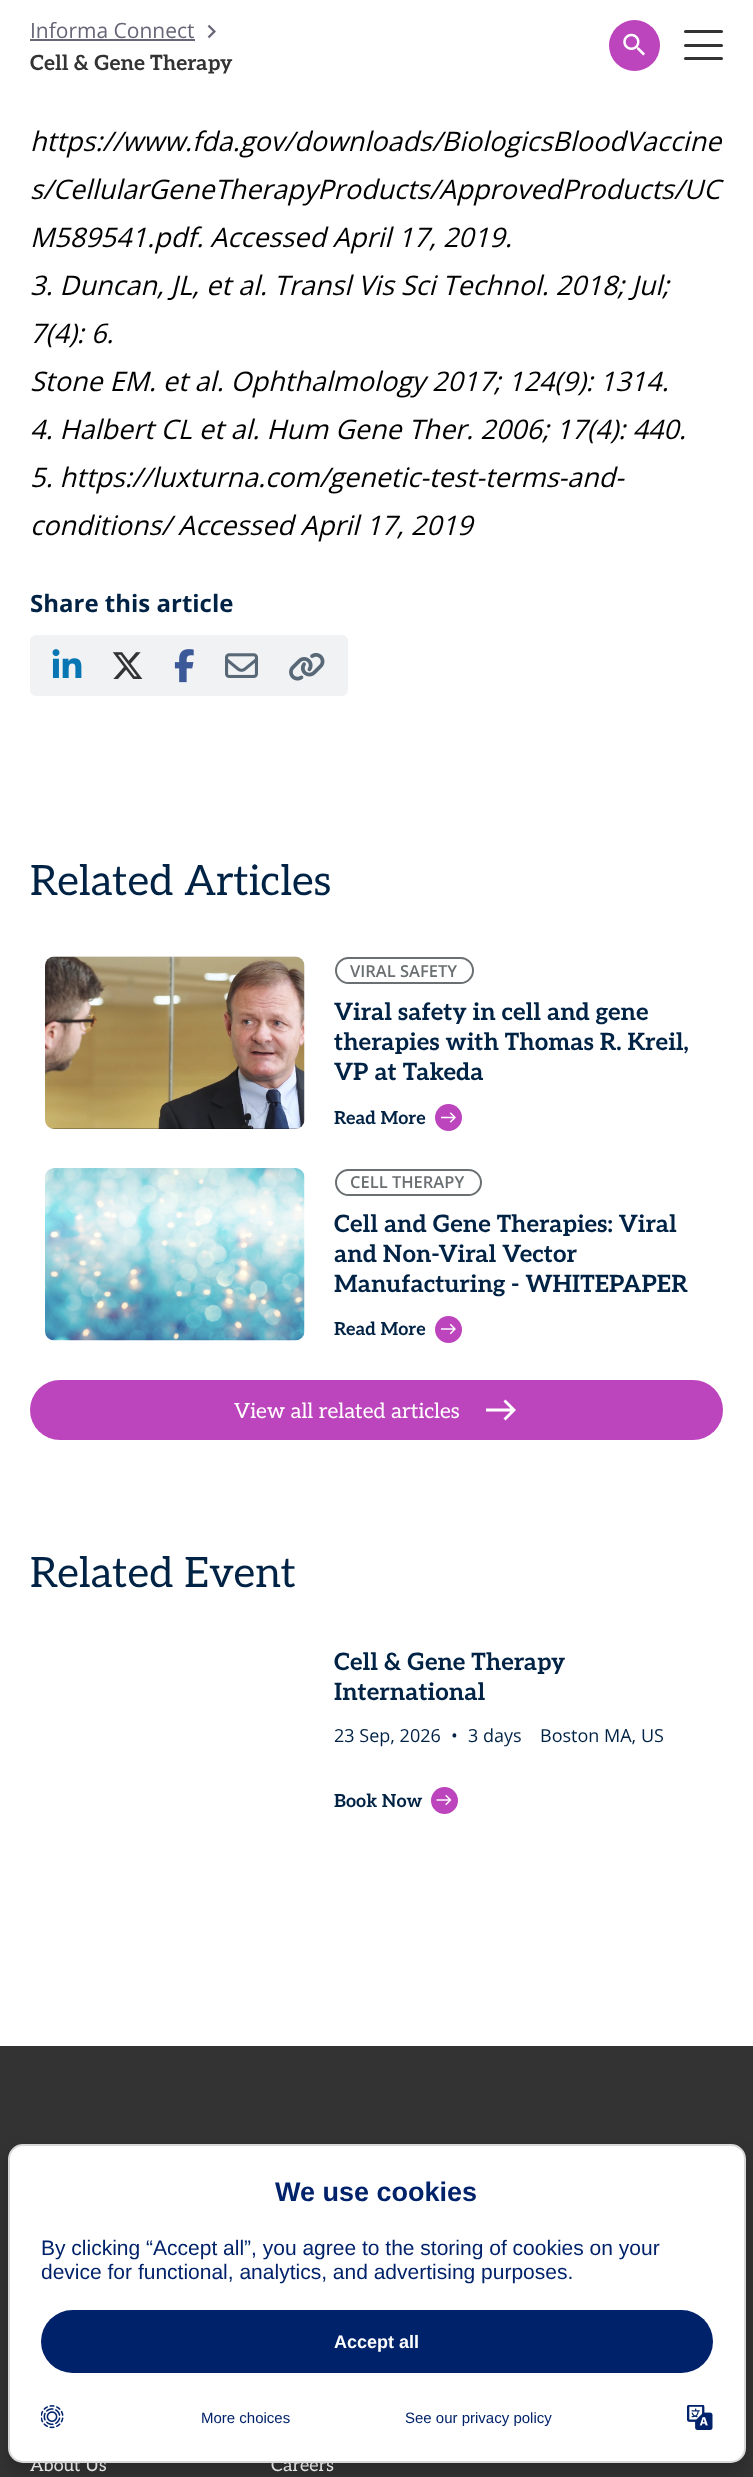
<svg xmlns="http://www.w3.org/2000/svg" width="753" height="2477">
<rect width="100%" height="100%" fill="#fff"/>
<text x="30" y="38" style="font-family:Open Sans;font-size:21px;fill:#667">Informa Connect</text>
<rect x="30" y="39" width="165" height="2" fill="#667"/>
<image x="207" y="24" width="9" height="15" href="media/1.png"/>
<text x="30" y="70" style="font-family:Aleo;font-size:21px;font-weight:bold;fill:#333">Cell &amp; Gene Therapy</text>
<circle cx="634.5" cy="45.5" r="25.5" fill="#bc44bc"/>
<image x="623" y="33" width="22" height="23" href="media/2.png"/>
<rect x="684" y="30" width="39" height="3" rx="1.5" fill="#333"/>
<rect x="684" y="44" width="39" height="3" rx="1.5" fill="#333"/>
<rect x="684" y="57" width="39" height="3" rx="1.5" fill="#333"/>
<text x="30" y="151" style="font-family:Open Sans;font-size:27px;font-style:italic;fill:#000">https://www.fda.gov/downloads/BiologicsBloodVaccine</text>
<text x="30" y="199" style="font-family:Open Sans;font-size:27px;font-style:italic;fill:#000">s/CellularGeneTherapyProducts/ApprovedProducts/UC</text>
<text x="30" y="247" style="font-family:Open Sans;font-size:27px;font-style:italic;fill:#000">M589541.pdf. Accessed April 17, 2019.</text>
<text x="30" y="295" style="font-family:Open Sans;font-size:27px;font-style:italic;fill:#000">3. Duncan, JL, et al. Transl Vis Sci Technol. 2018; Jul;</text>
<text x="30" y="343" style="font-family:Open Sans;font-size:27px;font-style:italic;fill:#000">7(4): 6.</text>
<text x="30" y="391" style="font-family:Open Sans;font-size:27px;font-style:italic;fill:#000">Stone EM. et al. Ophthalmology 2017; 124(9): 1314.</text>
<text x="30" y="439" style="font-family:Open Sans;font-size:27px;font-style:italic;fill:#000">4. Halbert CL et al. Hum Gene Ther. 2006; 17(4): 440.</text>
<text x="30" y="487" style="font-family:Open Sans;font-size:27px;font-style:italic;fill:#000">5. https://luxturna.com/genetic-test-terms-and-</text>
<text x="30" y="535" style="font-family:Open Sans;font-size:27px;font-style:italic;fill:#000">conditions/ Accessed April 17, 2019</text>
<text x="30" y="612" style="font-family:Open Sans;font-size:24px;font-weight:bold;fill:#024">Share this article</text>
<rect x="30" y="635" width="318" height="61" rx="6" fill="#f1f2f4"/>
<image x="52" y="649" width="30" height="29" href="media/3.png"/>
<image x="112" y="652" width="31" height="27" href="media/4.png"/>
<image x="174" y="649" width="20" height="34" href="media/5.png"/>
<image x="225" y="653" width="33" height="25" href="media/6.png"/>
<image x="289" y="653" width="36" height="28" href="media/7.png"/>
<text x="30" y="895" style="font-family:Aleo;font-size:42px;fill:#024">Related Articles</text>
<image x="45" y="956" width="260" height="173" href="media/8.png"/>
<rect x="336" y="958" width="137" height="25" rx="12.5" fill="none" stroke="#6a6f71" stroke-width="2"/>
<text x="350" y="977" style="font-family:Open Sans;font-size:16.5px;font-weight:600;fill:#6a6f71">VIRAL SAFETY</text>
<text x="334" y="1020" style="font-family:Aleo;font-size:24px;font-weight:bold;fill:#024">Viral safety in cell and gene</text>
<text x="334" y="1050" style="font-family:Aleo;font-size:24px;font-weight:bold;fill:#024">therapies with Thomas R. Kreil,</text>
<text x="334" y="1080" style="font-family:Aleo;font-size:24px;font-weight:bold;fill:#024">VP at Takeda</text>
<text x="334" y="1124" style="font-family:Aleo;font-size:18px;font-weight:bold;fill:#024">Read More</text>
<circle cx="448.5" cy="1117.5" r="13.5" fill="#bc44bc"/>
<image x="441" y="1112" width="15" height="11" href="media/9.png"/>
<image x="45" y="1168" width="260" height="173" href="media/10.png"/>
<rect x="336" y="1170" width="145" height="25" rx="12.5" fill="none" stroke="#6a6f71" stroke-width="2"/>
<text x="350" y="1188" style="font-family:Open Sans;font-size:16.5px;font-weight:600;fill:#6a6f71">CELL THERAPY</text>
<text x="334" y="1232" style="font-family:Aleo;font-size:24px;font-weight:bold;fill:#024">Cell and Gene Therapies: Viral</text>
<text x="334" y="1262" style="font-family:Aleo;font-size:24px;font-weight:bold;fill:#024">and Non-Viral Vector</text>
<text x="334" y="1292" style="font-family:Aleo;font-size:24px;font-weight:bold;fill:#024">Manufacturing - WHITEPAPER</text>
<text x="334" y="1335" style="font-family:Aleo;font-size:18px;font-weight:bold;fill:#024">Read More</text>
<circle cx="448.5" cy="1329.5" r="13.5" fill="#bc44bc"/>
<image x="441" y="1323" width="15" height="12" href="media/11.png"/>
<rect x="30" y="1380" width="693" height="60" rx="30" fill="#bc44bc"/>
<text x="234" y="1418" style="font-family:Aleo;font-size:21px;fill:#fff">View all related articles</text>
<path d="M505.5 1399.5l-2 2l7 7h-24.5v3h24.5l-7 7l2 2l10.5-10.5z" fill="#fff"/>
<text x="30" y="1587" style="font-family:Aleo;font-size:42px;fill:#024">Related Event</text>
<text x="334" y="1670" style="font-family:Aleo;font-size:24px;font-weight:bold;fill:#024">Cell &amp; Gene Therapy</text>
<text x="334" y="1700" style="font-family:Aleo;font-size:24px;font-weight:bold;fill:#024">International</text>
<text x="334" y="1742" style="font-family:Open Sans;font-size:18px;fill:#024">23 Sep, 2026</text>
<text x="451" y="1742" style="font-family:Open Sans;font-size:18px;fill:#024">•</text>
<text x="468" y="1742" style="font-family:Open Sans;font-size:18px;fill:#024">3 days</text>
<text x="540" y="1742" style="font-family:Open Sans;font-size:18px;fill:#024">Boston MA, US</text>
<text x="334" y="1807" style="font-family:Aleo;font-size:18px;font-weight:bold;fill:#024">Book Now</text>
<circle cx="444.5" cy="1800.5" r="13.5" fill="#bc44bc"/>
<image x="436" y="1794" width="16" height="12" href="media/12.png"/>
<rect y="2046" width="753" height="431" fill="#333"/>
<text x="30" y="2471" style="font-family:Aleo;font-size:18px;fill:#fff">About Us</text>
<text x="271" y="2471" style="font-family:Aleo;font-size:18px;fill:#fff">Careers</text>
<rect x="8" y="2151" width="738" height="320" rx="15" fill="#00000033" filter="blur(7.5px)"/>
<rect x="9" y="2145" width="736" height="317" rx="14" fill="#fff" stroke="#d8d8d8" stroke-width="2"/>
<text x="275" y="2201" style="font-family:Liberation Sans;font-size:27px;font-weight:bold;fill:#00226a">We use cookies</text>
<text x="41" y="2255" style="font-family:Liberation Sans;font-size:21px;fill:#00226a">By clicking “Accept all”, you agree to the storing of cookies on your</text>
<text x="41" y="2279" style="font-family:Liberation Sans;font-size:21px;fill:#00226a">device for functional, analytics, and advertising purposes.</text>
<rect x="41" y="2310" width="672" height="63" rx="31.5" fill="#00226a"/>
<text x="334" y="2348" style="font-family:Liberation Sans;font-size:18px;font-weight:bold;fill:#fff">Accept all</text>
<image x="41" y="2405" width="23" height="24" href="media/13.png"/>
<text x="201" y="2423" style="font-family:Liberation Sans;font-size:15px;fill:#00226a">More choices</text>
<text x="405" y="2423" style="font-family:Liberation Sans;font-size:15px;fill:#00226a">See our privacy policy</text>
<image x="687" y="2405" width="26" height="25" href="media/14.png"/>
</svg>
